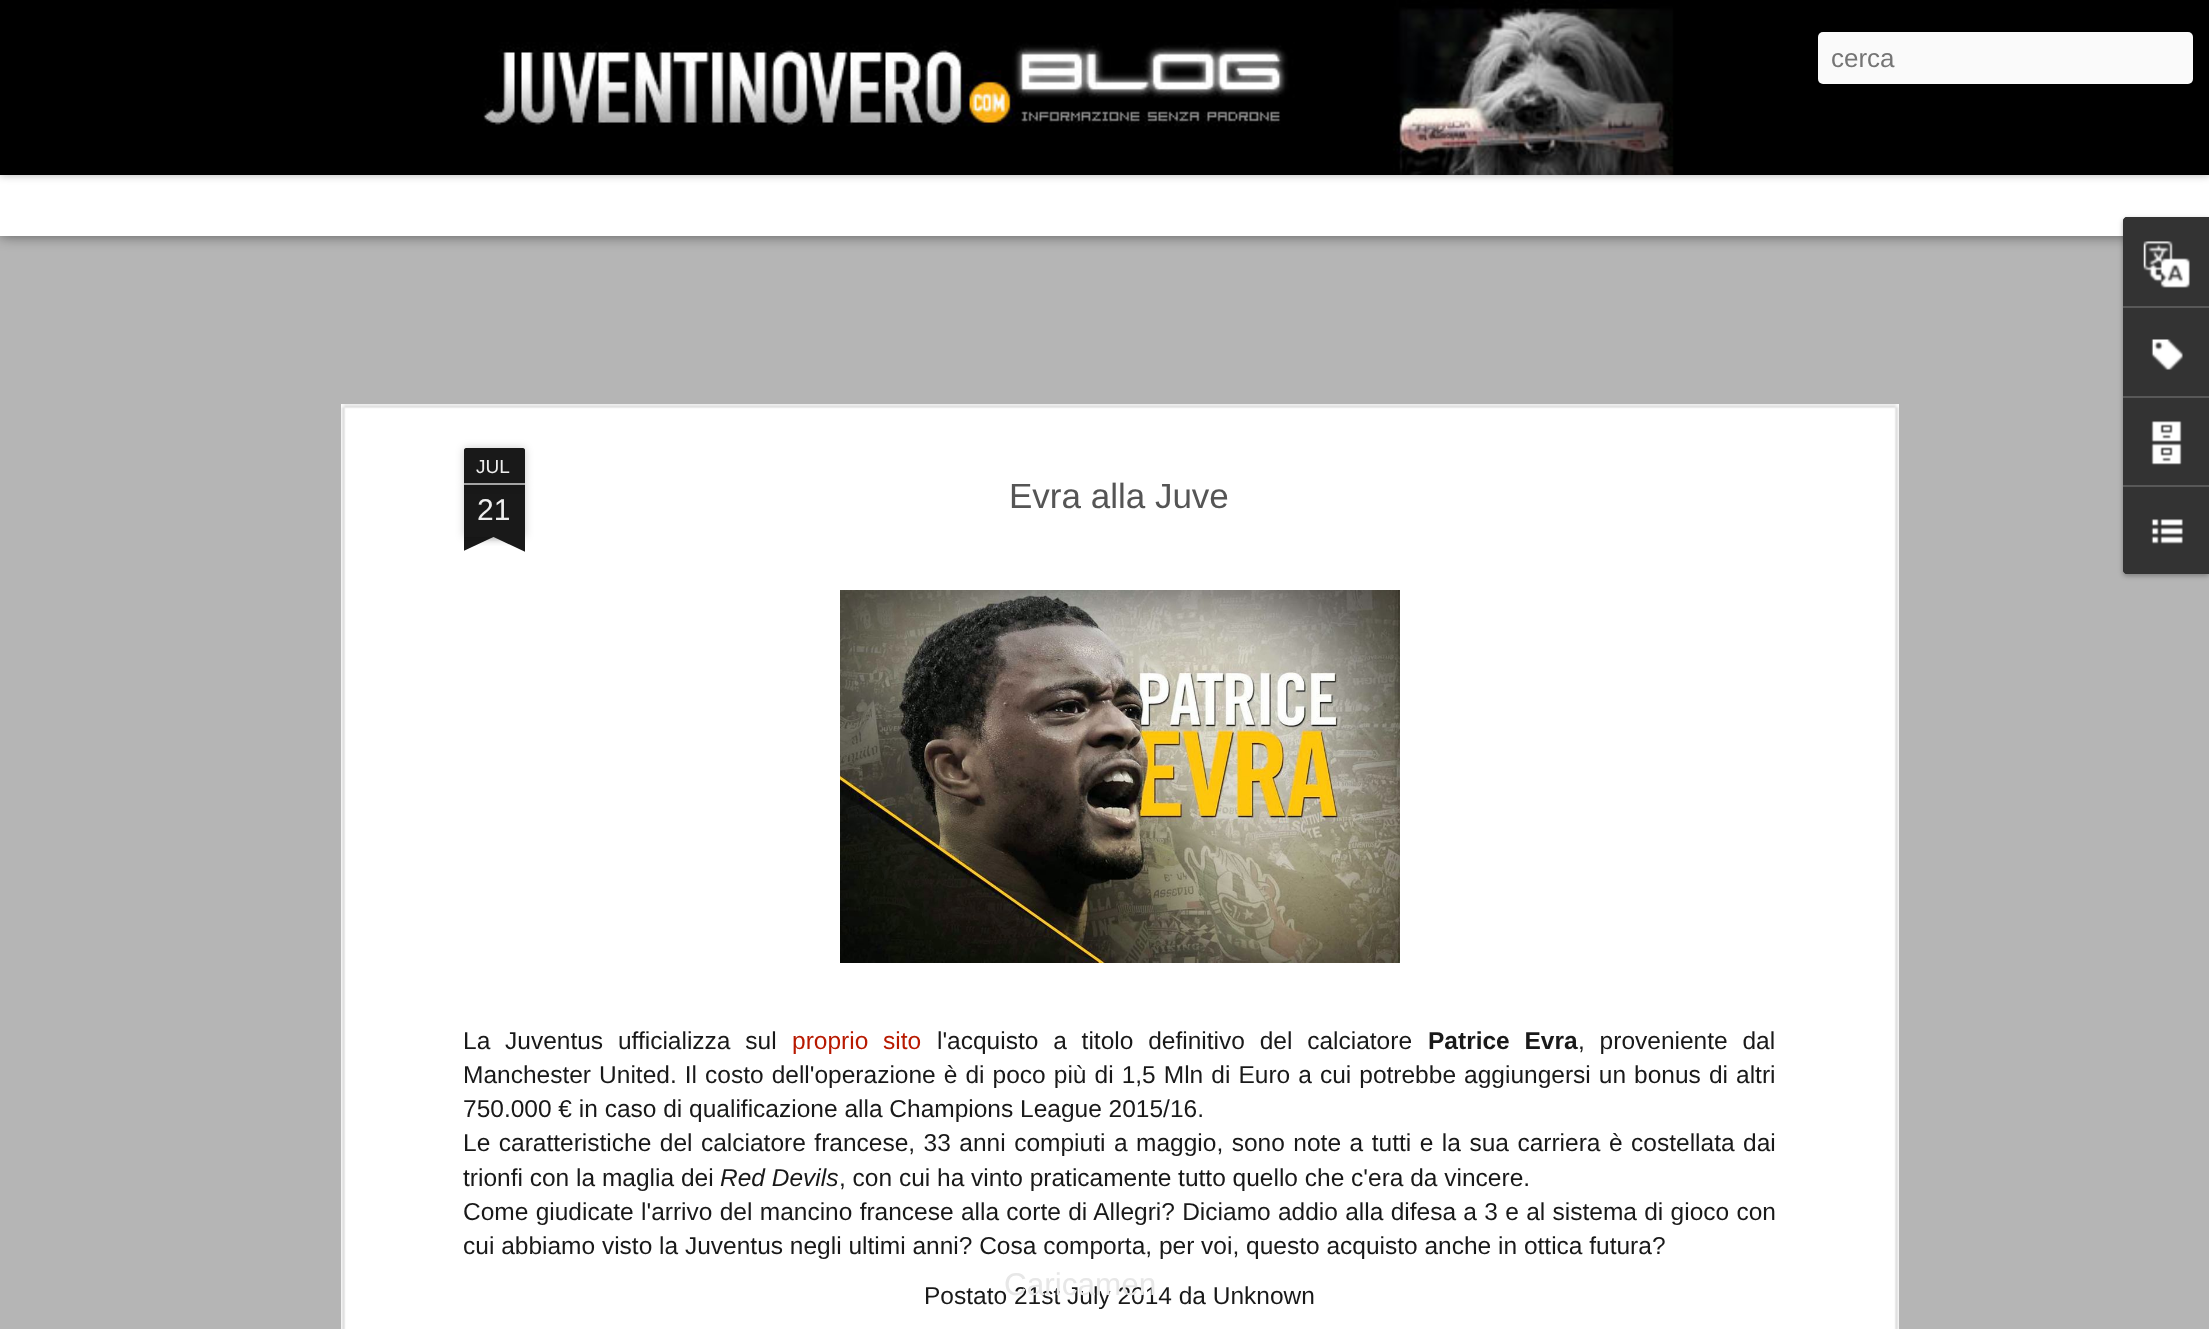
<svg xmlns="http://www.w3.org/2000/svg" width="2209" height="1329">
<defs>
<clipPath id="clip1"><rect x="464" y="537" width="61" height="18"/></clipPath>
<clipPath id="clip2"><rect x="464" y="537" width="61" height="18"/></clipPath>
</defs>
<rect width="100%" height="100%" fill="#b5b5b5"/>
<rect y="175" width="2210" height="61" fill="#00000080" filter="blur(7px)"/>
<rect y="175" width="2209" height="61" fill="#fff"/>
<rect width="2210" height="175" fill="#0000004d" filter="blur(4.5px)"/>
<rect width="2209" height="175" fill="#000"/>
<image x="483" y="0" width="1191" height="175" href="media/1.png"/>
<rect x="1818" y="32" width="375" height="52" rx="5" fill="#fafafa"/>
<text x="1831" y="67" style="font-family:Liberation Sans;font-size:26px;fill:#757575">cerca</text>
<rect x="2123" y="219" width="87" height="357" rx="4" fill="#0000004d" filter="blur(2.5px)"/>
<path d="M2127 217h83v357h-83c-2 0-4-2-4-4v-349c0-2 2-4 4-4z" fill="#333"/>
<path d="M2127 217h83v89h-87v-85c0-2 2-4 4-4z" fill="#333"/>
<image x="2143" y="241" width="47" height="47" href="media/2.png"/>
<rect x="2123" y="306" width="86" height="2" fill="#585858"/>
<image x="2151" y="339" width="32" height="31" href="media/3.png"/>
<rect x="2123" y="396" width="86" height="2" fill="#585858"/>
<image x="2151" y="421" width="31" height="44" href="media/4.png"/>
<path d="M2123 485h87v89h-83c-2 0-4-2-4-4z" fill="#333"/>
<rect x="2123" y="485" width="86" height="2" fill="#585858"/>
<image x="2151" y="519" width="32" height="25" href="media/5.png"/>
<rect x="341" y="404" width="1558" height="925" fill="#fff"/>
<image x="341" y="404" width="1558" height="925" href="media/6.png"/>
<rect x="464" y="485" width="61" height="52" fill="#00000033" filter="blur(4.5px)"/>
<rect x="464" y="485" width="61" height="52" fill="#191919"/>
<rect x="464" y="448" width="61" height="37" rx="2" fill="#00000033" filter="blur(4.5px)"/>
<path d="M466 448h57c1 0 2 1 2 2v35h-61v-35c0-1 1-2 2-2z" fill="#191919"/>
<rect x="464" y="483" width="61" height="2" fill="#a3a3a3"/>
<text x="476" y="473" style="font-family:Liberation Sans;font-size:19px;fill:#eee">JUL</text>
<text x="477" y="520" style="font-family:Liberation Sans;font-size:30px;fill:#eee">21</text>
<g clip-path="url(#clip1)">
<rect x="448" y="520" width="88" height="17" fill="#00000033" filter="blur(4.5px)"/>
</g>
<g clip-path="url(#clip2)">
<path d="M448 539l79-37l7 16l-79 37z" fill="#191919"/>
</g>
<g clip-path="url(#clip1)">
<rect x="453" y="520" width="88" height="17" fill="#00000033" filter="blur(4.5px)"/>
</g>
<g clip-path="url(#clip2)">
<path d="M460 502l79 37l-7 16l-79-37z" fill="#191919"/>
</g>
<text x="1009" y="508" style="font-family:Liberation Sans;font-size:35px;fill:#555">Evra alla Juve</text>
<image x="840" y="590" width="560" height="373" href="media/7.png"/>
<text x="463" y="1049" word-spacing="8" style="font-family:Liberation Sans;font-size:24.5px;fill:#191919">La Juventus ufficializza sul</text>
<text x="792" y="1049" word-spacing="8" style="font-family:Liberation Sans;font-size:24.5px;fill:#b81900">proprio sito</text>
<text x="937" y="1049" word-spacing="8" style="font-family:Liberation Sans;font-size:24.5px;fill:#191919">l'acquisto a titolo definitivo del calciatore</text>
<text x="1428" y="1049" word-spacing="8" style="font-family:Liberation Sans;font-size:24.5px;font-weight:bold;fill:#191919">Patrice Evra</text>
<text x="1578" y="1049" word-spacing="8" style="font-family:Liberation Sans;font-size:24.5px;fill:#191919">, proveniente dal</text>
<text x="463" y="1083" word-spacing="1.25" style="font-family:Liberation Sans;font-size:24.5px;fill:#191919">Manchester United. Il costo dell'operazione è di poco più di 1,5 Mln di Euro a cui potrebbe aggiungersi un bonus di altri</text>
<text x="463" y="1117" style="font-family:Liberation Sans;font-size:24.5px;fill:#191919">750.000 € in caso di qualificazione alla Champions League 2015/16.</text>
<text x="463" y="1151" word-spacing="1.7" style="font-family:Liberation Sans;font-size:24.5px;fill:#191919">Le caratteristiche del calciatore francese, 33 anni compiuti a maggio, sono note a tutti e la sua carriera è costellata dai</text>
<text x="463" y="1186" style="font-family:Liberation Sans;font-size:24.5px;fill:#191919">trionfi con la maglia dei</text>
<text x="720" y="1186" style="font-family:Liberation Sans;font-size:24.5px;font-style:italic;fill:#191919">Red Devils</text>
<text x="839" y="1186" style="font-family:Liberation Sans;font-size:24.5px;fill:#191919">, con cui ha vinto praticamente tutto quello che c'era da vincere.</text>
<text x="463" y="1220" word-spacing="0.5" style="font-family:Liberation Sans;font-size:24.5px;fill:#191919">Come giudicate l'arrivo del mancino francese alla corte di Allegri? Diciamo addio alla difesa a 3 e al sistema di gioco con</text>
<text x="463" y="1254" style="font-family:Liberation Sans;font-size:24.5px;fill:#191919">cui abbiamo visto la Juventus negli ultimi anni? Cosa comporta, per voi, questo acquisto anche in ottica futura?</text>
<text x="924" y="1304" style="font-family:Liberation Sans;font-size:24.5px;fill:#191919">Postato 21st July 2014 da Unknown</text>
<text x="1004" y="1295" style="font-family:Liberation Sans;font-size:31.5px;fill:#e7e7e7">Caricamen</text>
</svg>
